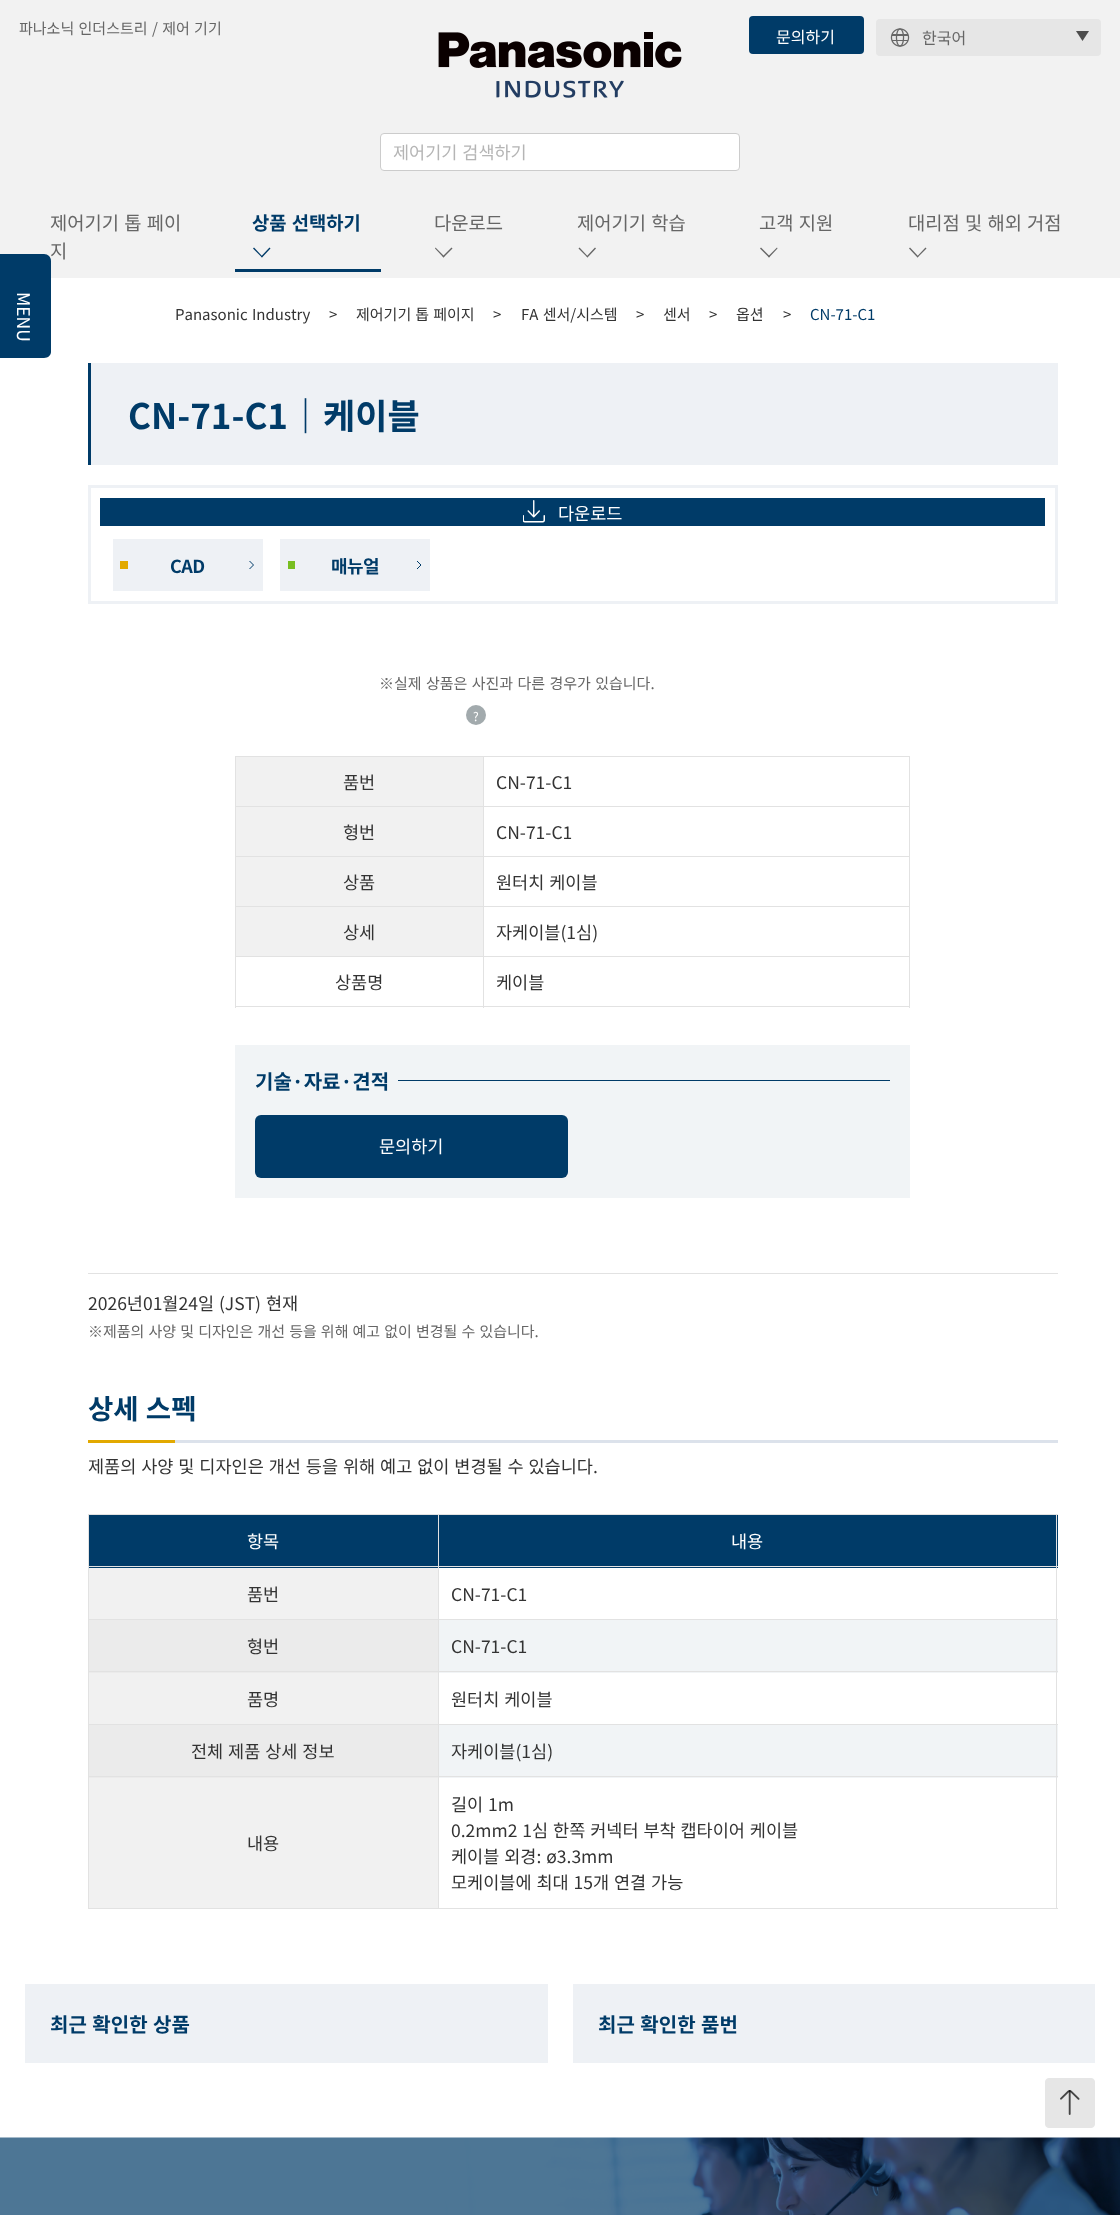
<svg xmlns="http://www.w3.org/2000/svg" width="1120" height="2215">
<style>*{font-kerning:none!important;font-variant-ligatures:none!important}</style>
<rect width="100%" height="100%" fill="#fff"/>
<rect width="1120" height="278" fill="#f2f2f2"/>
<text x="19" y="34" word-spacing="1" style="font-family:Noto Sans KR;font-size:15px;fill:#666">파나소닉 인더스트리 / 제어 기기</text>
<rect x="749" y="16" width="115" height="38" rx="4" fill="#003b68"/>
<text x="776" y="43" style="font-family:Noto Sans KR;font-size:16px;fill:#fff">문의하기</text>
<rect x="876" y="19" width="225" height="37" rx="4" fill="#e6e6e6"/>
<image x="890" y="28" width="20" height="19" href="media/1.png"/>
<text x="922" y="44" style="font-family:Noto Sans KR;font-size:16px;fill:#666">한국어</text>
<path d="M1076 31h13l-6.5 10z" fill="#4d4d4d"/>
<image x="438" y="32" width="244" height="66" href="media/2.png"/>
<rect x="380.5" y="133.5" width="359" height="37" rx="3.5" fill="#fff" stroke="#ccc"/>
<text x="393" y="159" word-spacing="1" style="font-family:Noto Sans KR;font-size:17.5px;fill:#b5b5b5">제어기기 검색하기</text>
<text x="50" y="230" word-spacing="1" style="font-family:Noto Sans KR;font-size:18.75px;fill:#666">제어기기 톱 페이</text>
<text x="50" y="258" style="font-family:Noto Sans KR;font-size:18.75px;fill:#666">지</text>
<text x="252" y="230" word-spacing="1" style="font-family:Noto Sans KR;font-size:18.75px;font-weight:bold;fill:#003b68">상품 선택하기</text>
<path d="M270.5 248.5l-8.5 9l-1-1l8.5-9z" fill="#003b68"/>
<path d="M262.5 256.5l-.5 1l-9-9l1-1z" fill="#003b68"/>
<rect x="235" y="269" width="146" height="3" fill="#003b68"/>
<text x="434" y="230" style="font-family:Noto Sans KR;font-size:18.75px;fill:#666">다운로드</text>
<path d="M452.5 248.5l-9 9l-1-1l9-9z" fill="#666"/>
<path d="M444.5 256.5l-1 1l-8.5-9l.5-1z" fill="#666"/>
<text x="577" y="230" word-spacing="1" style="font-family:Noto Sans KR;font-size:18.75px;fill:#666">제어기기 학습</text>
<path d="M596 248.5l-8.5 9l-1-1l8.5-9z" fill="#666"/>
<path d="M588 256.5l-.5 1l-9-9l1-1z" fill="#666"/>
<text x="759" y="230" word-spacing="1" style="font-family:Noto Sans KR;font-size:18.75px;fill:#666">고객 지원</text>
<path d="M777.5 248.5l-8.5 9l-1-1l9-9z" fill="#666"/>
<path d="M770 256.5l-1 1l-9-9l1-1z" fill="#666"/>
<text x="908" y="230" word-spacing="1" style="font-family:Noto Sans KR;font-size:18.75px;fill:#666">대리점 및 해외 거점</text>
<path d="M926.5 248.5l-9 9l-.5-1l8.5-9z" fill="#666"/>
<path d="M918.5 256.5l-1 1l-8.5-9l1-1z" fill="#666"/>
<path d="M51 261v91c0 3-3 6-7 6h-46v-104h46c4 0 7 3 7 7z" fill="#003b68"/>
<text x="17" y="292" transform="rotate(90 17 292)" style="font-family:Noto Sans KR;font-size:17.5px;fill:#fff">MENU</text>
<rect x="91" y="363" width="967" height="102" fill="#eef1f5"/>
<rect x="88" y="363" width="3" height="102" fill="#003b68"/>
<text x="128" y="429" style="font-family:Noto Sans KR;font-size:35px;font-weight:bold;fill:#003b68">CN-71-C1｜케이블</text>
<rect x="89.5" y="486.5" width="967" height="116" fill="none" stroke="#eef1f5" stroke-width="3"/>
<rect x="100" y="498" width="945" height="28" fill="#003b68"/>
<image x="523" y="500" width="22" height="23" href="media/3.png"/>
<text x="558" y="520" style="font-family:Noto Sans KR;font-size:17.5px;fill:#fff">다운로드</text>
<rect x="113" y="539" width="150" height="52" fill="#eef1f5"/>
<rect x="120" y="561" width="8" height="8" fill="#e2a900"/>
<text x="170" y="573" style="font-family:Noto Sans KR;font-size:18px;font-weight:bold;letter-spacing:-0.5px;fill:#003b68">CAD</text>
<path d="M249.5 561l4 4l-4 4" fill="none" stroke="#003b68"/>
<rect x="280" y="539" width="150" height="52" fill="#eef1f5"/>
<rect x="288" y="561" width="7" height="8" fill="#78be21"/>
<text x="331" y="573" style="font-family:Noto Sans KR;font-size:18px;font-weight:bold;letter-spacing:-0.5px;fill:#003b68">매뉴얼</text>
<path d="M417 561l4 4l-4 4" fill="none" stroke="#003b68"/>
<text x="379" y="689" word-spacing="1" style="font-family:Noto Sans KR;font-size:15px;fill:#666">※실제 상품은 사진과 다른 경우가 있습니다.</text>
<circle cx="476" cy="715" r="10" fill="#a2aaad"/>
<text x="473" y="721" style="font-family:Noto Sans KR;font-size:12px;fill:#fff">?</text>
<rect x="236" y="757" width="247" height="49" fill="#f1f1f1"/>
<rect x="483" y="756" width="427" height="1" fill="#e2e2e2"/>
<rect x="483" y="806" width="427" height="1" fill="#e2e2e2"/>
<rect x="483" y="856" width="427" height="1" fill="#e2e2e2"/>
<rect x="483" y="906" width="427" height="1" fill="#e2e2e2"/>
<rect x="483" y="956" width="427" height="1" fill="#e2e2e2"/>
<rect x="909" y="956" width="1" height="52" fill="#e2e2e2"/>
<rect x="483" y="1006" width="427" height="1" fill="#e2e2e2"/>
<rect x="483" y="956" width="1" height="52" fill="#e2e2e2"/>
<rect x="235" y="956" width="249" height="1" fill="#e2e2e2"/>
<rect x="483" y="906" width="1" height="52" fill="#e2e2e2"/>
<rect x="235" y="906" width="249" height="1" fill="#e2e2e2"/>
<rect x="483" y="856" width="1" height="52" fill="#e2e2e2"/>
<rect x="235" y="856" width="249" height="1" fill="#e2e2e2"/>
<rect x="483" y="806" width="1" height="52" fill="#e2e2e2"/>
<rect x="235" y="806" width="249" height="1" fill="#e2e2e2"/>
<rect x="483" y="756" width="1" height="52" fill="#e2e2e2"/>
<rect x="235" y="756" width="249" height="1" fill="#e2e2e2"/>
<rect x="235" y="1006" width="249" height="1" fill="#e2e2e2"/>
<rect x="235" y="956" width="1" height="52" fill="#e2e2e2"/>
<rect x="235" y="906" width="1" height="52" fill="#e2e2e2"/>
<rect x="235" y="856" width="1" height="52" fill="#e2e2e2"/>
<rect x="235" y="806" width="1" height="52" fill="#e2e2e2"/>
<rect x="235" y="756" width="1" height="52" fill="#e2e2e2"/>
<text x="343" y="789" style="font-family:Noto Sans KR;font-size:17.5px;fill:#333">품번</text>
<rect x="909" y="906" width="1" height="52" fill="#e2e2e2"/>
<rect x="909" y="856" width="1" height="52" fill="#e2e2e2"/>
<rect x="909" y="806" width="1" height="52" fill="#e2e2e2"/>
<rect x="909" y="756" width="1" height="52" fill="#e2e2e2"/>
<text x="496" y="789" style="font-family:Noto Sans KR;font-size:17.5px;fill:#333">CN-71-C1</text>
<rect x="236" y="807" width="247" height="49" fill="#f1f1f1"/>
<text x="343" y="839" style="font-family:Noto Sans KR;font-size:17.5px;fill:#333">형번</text>
<text x="496" y="839" style="font-family:Noto Sans KR;font-size:17.5px;fill:#333">CN-71-C1</text>
<rect x="236" y="857" width="247" height="49" fill="#f1f1f1"/>
<text x="343" y="889" style="font-family:Noto Sans KR;font-size:17.5px;fill:#333">상품</text>
<text x="496" y="889" word-spacing="1" style="font-family:Noto Sans KR;font-size:17.5px;fill:#333">원터치 케이블</text>
<rect x="236" y="907" width="247" height="49" fill="#f1f1f1"/>
<text x="343" y="939" style="font-family:Noto Sans KR;font-size:17.5px;fill:#333">상세</text>
<text x="496" y="939" style="font-family:Noto Sans KR;font-size:17.5px;fill:#333">자케이블(1심)</text>
<text x="335" y="989" style="font-family:Noto Sans KR;font-size:17.5px;fill:#333">상품명</text>
<text x="496" y="989" style="font-family:Noto Sans KR;font-size:17.5px;fill:#333">케이블</text>
<rect x="235" y="1045" width="675" height="153" fill="#f1f4f6"/>
<text x="255" y="1089" style="font-family:Noto Sans KR;font-size:20px;font-weight:bold;fill:#003b68">기술·자료·견적</text>
<rect x="398" y="1080" width="492" height="1" fill="#003b68"/>
<rect x="255" y="1115" width="313" height="63" rx="6" fill="#003b68"/>
<text x="379" y="1153" style="font-family:Noto Sans KR;font-size:17.5px;fill:#fff">문의하기</text>
<rect x="88" y="1273" width="970" height="1" fill="#e2e2e2"/>
<text x="88" y="1310" word-spacing="1" style="font-family:Noto Sans KR;font-size:17.5px;fill:#333">2026년01월24일 (JST) 현재</text>
<text x="88" y="1337" word-spacing="0.75" style="font-family:Noto Sans KR;font-size:15px;fill:#666">※제품의 사양 및 디자인은 개선 등을 위해 예고 없이 변경될 수 있습니다.</text>
<rect x="175" y="1440" width="883" height="3" fill="#dce2eb"/>
<text x="88" y="1419" word-spacing="1" style="font-family:Noto Sans KR;font-size:27.5px;font-weight:bold;fill:#003b68">상세 스펙</text>
<rect x="88" y="1440" width="87" height="3" fill="#e2a900"/>
<text x="88" y="1473" word-spacing="1" style="font-family:Noto Sans KR;font-size:17.5px;fill:#333">제품의 사양 및 디자인은 개선 등을 위해 예고 없이 변경될 수 있습니다.</text>
<rect x="89" y="1515" width="349" height="53" fill="#003b68"/>
<rect x="438" y="1514" width="620" height="1" fill="#e2e2e2"/>
<rect x="439" y="1515" width="619" height="53" fill="#003b68"/>
<rect x="438" y="1566" width="620" height="1" fill="#e2e2e2"/>
<rect x="438" y="1619" width="620" height="1" fill="#e2e2e2"/>
<rect x="89" y="1620" width="349" height="53" fill="#ebebeb"/>
<rect x="439" y="1620" width="619" height="53" fill="#f1f4f6"/>
<rect x="438" y="1671" width="620" height="1" fill="#e2e2e2"/>
<rect x="438" y="1724" width="620" height="1" fill="#e2e2e2"/>
<rect x="89" y="1725" width="349" height="53" fill="#ebebeb"/>
<rect x="439" y="1725" width="619" height="53" fill="#f1f4f6"/>
<rect x="438" y="1776" width="620" height="1" fill="#e2e2e2"/>
<rect x="1056" y="1776" width="1" height="133" fill="#e2e2e2"/>
<rect x="438" y="1908" width="620" height="1" fill="#e2e2e2"/>
<rect x="438" y="1776" width="1" height="133" fill="#e2e2e2"/>
<rect x="88" y="1776" width="351" height="1" fill="#e2e2e2"/>
<rect x="438" y="1724" width="1" height="54" fill="#e2e2e2"/>
<rect x="88" y="1724" width="351" height="1" fill="#e2e2e2"/>
<rect x="438" y="1671" width="1" height="54" fill="#e2e2e2"/>
<rect x="88" y="1671" width="351" height="1" fill="#e2e2e2"/>
<rect x="438" y="1619" width="1" height="54" fill="#e2e2e2"/>
<rect x="88" y="1619" width="351" height="1" fill="#e2e2e2"/>
<rect x="438" y="1566" width="1" height="54" fill="#e2e2e2"/>
<rect x="88" y="1566" width="351" height="1" fill="#e2e2e2"/>
<rect x="438" y="1514" width="1" height="54" fill="#e2e2e2"/>
<rect x="88" y="1514" width="351" height="1" fill="#e2e2e2"/>
<rect x="88" y="1908" width="351" height="1" fill="#e2e2e2"/>
<rect x="88" y="1776" width="1" height="133" fill="#e2e2e2"/>
<rect x="88" y="1724" width="1" height="54" fill="#e2e2e2"/>
<rect x="88" y="1671" width="1" height="54" fill="#e2e2e2"/>
<rect x="88" y="1619" width="1" height="54" fill="#e2e2e2"/>
<rect x="88" y="1566" width="1" height="54" fill="#e2e2e2"/>
<rect x="88" y="1514" width="1" height="54" fill="#e2e2e2"/>
<text x="247" y="1548" style="font-family:Noto Sans KR;font-size:17.5px;fill:#fff">항목</text>
<rect x="1056" y="1724" width="1" height="54" fill="#e2e2e2"/>
<rect x="1056" y="1671" width="1" height="54" fill="#e2e2e2"/>
<rect x="1056" y="1619" width="1" height="54" fill="#e2e2e2"/>
<rect x="1056" y="1566" width="1" height="54" fill="#e2e2e2"/>
<rect x="1056" y="1514" width="1" height="54" fill="#e2e2e2"/>
<text x="731" y="1548" style="font-family:Noto Sans KR;font-size:17.5px;fill:#fff">내용</text>
<rect x="89" y="1568" width="349" height="51" fill="#f1f1f1"/>
<text x="247" y="1601" style="font-family:Noto Sans KR;font-size:17.5px;fill:#333">품번</text>
<text x="451" y="1601" style="font-family:Noto Sans KR;font-size:17.5px;fill:#333">CN-71-C1</text>
<text x="247" y="1653" style="font-family:Noto Sans KR;font-size:17.5px;fill:#333">형번</text>
<text x="451" y="1653" style="font-family:Noto Sans KR;font-size:17.5px;fill:#333">CN-71-C1</text>
<rect x="89" y="1673" width="349" height="51" fill="#f1f1f1"/>
<text x="247" y="1706" style="font-family:Noto Sans KR;font-size:17.5px;fill:#333">품명</text>
<text x="451" y="1706" word-spacing="1" style="font-family:Noto Sans KR;font-size:17.5px;fill:#333">원터치 케이블</text>
<text x="191" y="1758" word-spacing="1" style="font-family:Noto Sans KR;font-size:17.5px;fill:#333">전체 제품 상세 정보</text>
<text x="451" y="1758" style="font-family:Noto Sans KR;font-size:17.5px;fill:#333">자케이블(1심)</text>
<rect x="89" y="1778" width="349" height="130" fill="#f1f1f1"/>
<text x="247" y="1850" style="font-family:Noto Sans KR;font-size:17.5px;fill:#333">내용</text>
<text x="451" y="1811" word-spacing="1" style="font-family:Noto Sans KR;font-size:17.5px;fill:#333">길이 1m</text>
<text x="451" y="1837" word-spacing="1" style="font-family:Noto Sans KR;font-size:17.5px;fill:#333">0.2mm2 1심 한쪽 커넥터 부착 캡타이어 케이블</text>
<text x="451" y="1863" word-spacing="1" style="font-family:Noto Sans KR;font-size:17.5px;fill:#333">케이블 외경: ø3.3mm</text>
<text x="451" y="1889" word-spacing="1" style="font-family:Noto Sans KR;font-size:17.5px;fill:#333">모케이블에 최대 15개 연결 가능</text>
<text x="175" y="320" word-spacing="1" style="font-family:Noto Sans KR;font-size:15px;fill:#333">Panasonic Industry</text>
<text x="329" y="320" style="font-family:Noto Sans KR;font-size:15px;fill:#333">&gt;</text>
<text x="356" y="320" word-spacing="0.75" style="font-family:Noto Sans KR;font-size:15px;fill:#333">제어기기 톱 페이지</text>
<text x="493" y="320" style="font-family:Noto Sans KR;font-size:15px;fill:#333">&gt;</text>
<text x="521" y="320" word-spacing="1" style="font-family:Noto Sans KR;font-size:15px;fill:#333">FA 센서/시스템</text>
<text x="636" y="320" style="font-family:Noto Sans KR;font-size:15px;fill:#333">&gt;</text>
<text x="663" y="320" style="font-family:Noto Sans KR;font-size:15px;fill:#333">센서</text>
<text x="709" y="320" style="font-family:Noto Sans KR;font-size:15px;fill:#333">&gt;</text>
<text x="736" y="320" style="font-family:Noto Sans KR;font-size:15px;fill:#333">옵션</text>
<text x="783" y="320" style="font-family:Noto Sans KR;font-size:15px;fill:#333">&gt;</text>
<text x="810" y="320" style="font-family:Noto Sans KR;font-size:15px;fill:#003b68">CN-71-C1</text>
<rect x="25" y="1984" width="523" height="79" fill="#eef1f5"/>
<text x="50" y="2032" word-spacing="1" style="font-family:Noto Sans KR;font-size:20px;font-weight:bold;fill:#003b68">최근 확인한 상품</text>
<rect x="573" y="1984" width="522" height="79" fill="#eef1f5"/>
<text x="598" y="2032" word-spacing="1" style="font-family:Noto Sans KR;font-size:20px;font-weight:bold;fill:#003b68">최근 확인한 품번</text>
<image x="1045" y="2078" width="50" height="50" href="media/4.png"/>
<image x="0" y="2137" width="1120" height="78" href="media/5.png"/>
</svg>
